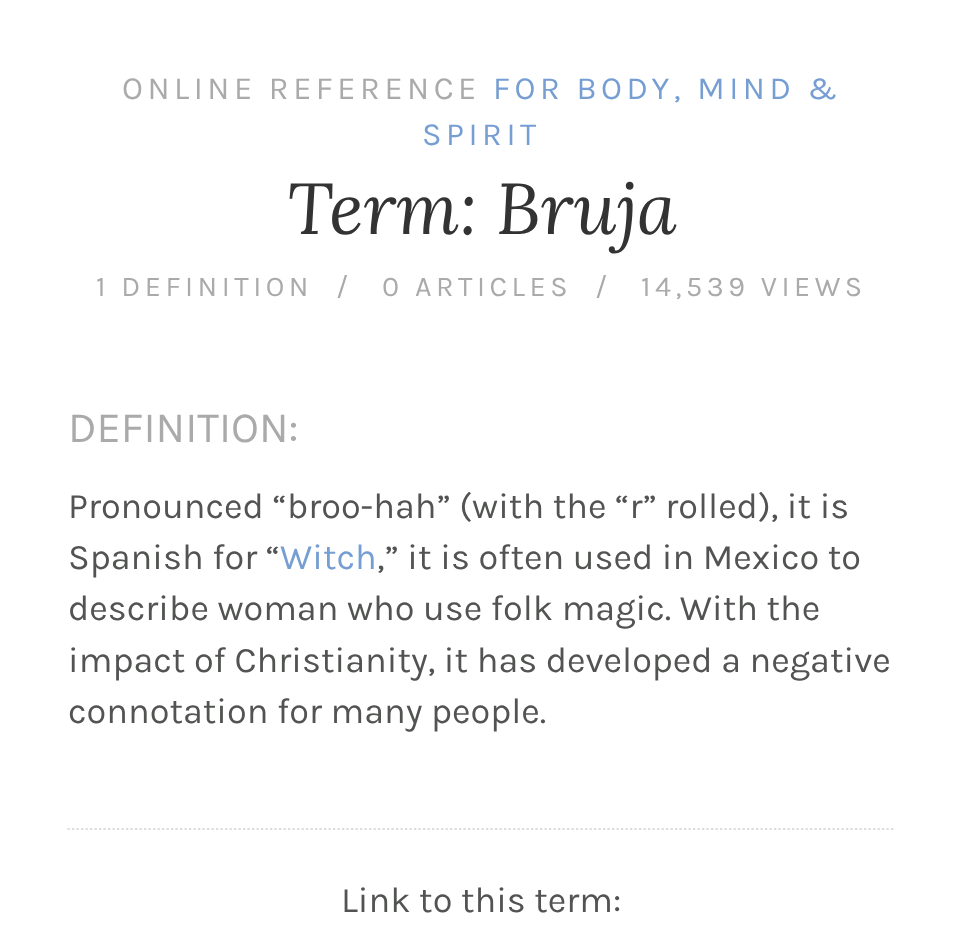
<svg xmlns="http://www.w3.org/2000/svg" width="962" height="934">
<rect width="100%" height="100%" fill="#fff"/>
<text x="122" y="99" style="font-family:Karla;font-size:32.4px;letter-spacing:4.5px;fill:#aaa">ONLINE REFERENCE</text>
<text x="493" y="99" style="font-family:Karla;font-size:32.4px;letter-spacing:4.5px;fill:#769ed3">FOR BODY, MIND &amp;</text>
<text x="422" y="145" style="font-family:Karla;font-size:32.4px;letter-spacing:4.5px;fill:#769ed3">SPIRIT</text>
<text x="287" y="234" style="font-family:Lora;font-size:72px;font-style:italic;fill:#333">Term: Bruja</text>
<text x="96" y="296" style="font-family:Karla;font-size:28.75px;letter-spacing:4.5px;fill:#aaa">1 DEFINITION</text>
<text x="336" y="296" style="font-family:Karla;font-size:28.75px;letter-spacing:4.5px;fill:#aaa">/</text>
<text x="382" y="296" style="font-family:Karla;font-size:28.75px;letter-spacing:4.5px;fill:#aaa">0 ARTICLES</text>
<text x="595" y="296" style="font-family:Karla;font-size:28.75px;letter-spacing:4.5px;fill:#aaa">/</text>
<text x="641" y="296" style="font-family:Karla;font-size:28.75px;letter-spacing:4.5px;fill:#aaa">14,539 VIEWS</text>
<text x="68" y="442" style="font-family:Karla;font-size:43.25px;fill:#aaa">DEFINITION:</text>
<text x="68" y="518" style="font-family:Karla;font-size:36px;fill:#525452">Pronounced “broo-hah” (with the “r” rolled), it is</text>
<text x="68" y="569" style="font-family:Karla;font-size:36px;fill:#525452">Spanish for “</text>
<text x="280" y="569" style="font-family:Karla;font-size:36px;fill:#769ed3">Witch</text>
<text x="377" y="569" style="font-family:Karla;font-size:36px;fill:#525452">,” it is often used in Mexico to</text>
<text x="68" y="620" style="font-family:Karla;font-size:36px;fill:#525452">describe woman who use folk magic. With the</text>
<text x="68" y="672" style="font-family:Karla;font-size:36px;fill:#525452">impact of Christianity, it has developed a negative</text>
<text x="68" y="723" style="font-family:Karla;font-size:36px;fill:#525452">connotation for many people.</text>
<path d="M67.5 829h828" fill="none" stroke="#dcdcdc" stroke-width="2.2" stroke-dasharray="2.25 2.25"/>
<text x="341" y="912" style="font-family:Karla;font-size:36px;fill:#525452">Link to this term:</text>
</svg>
